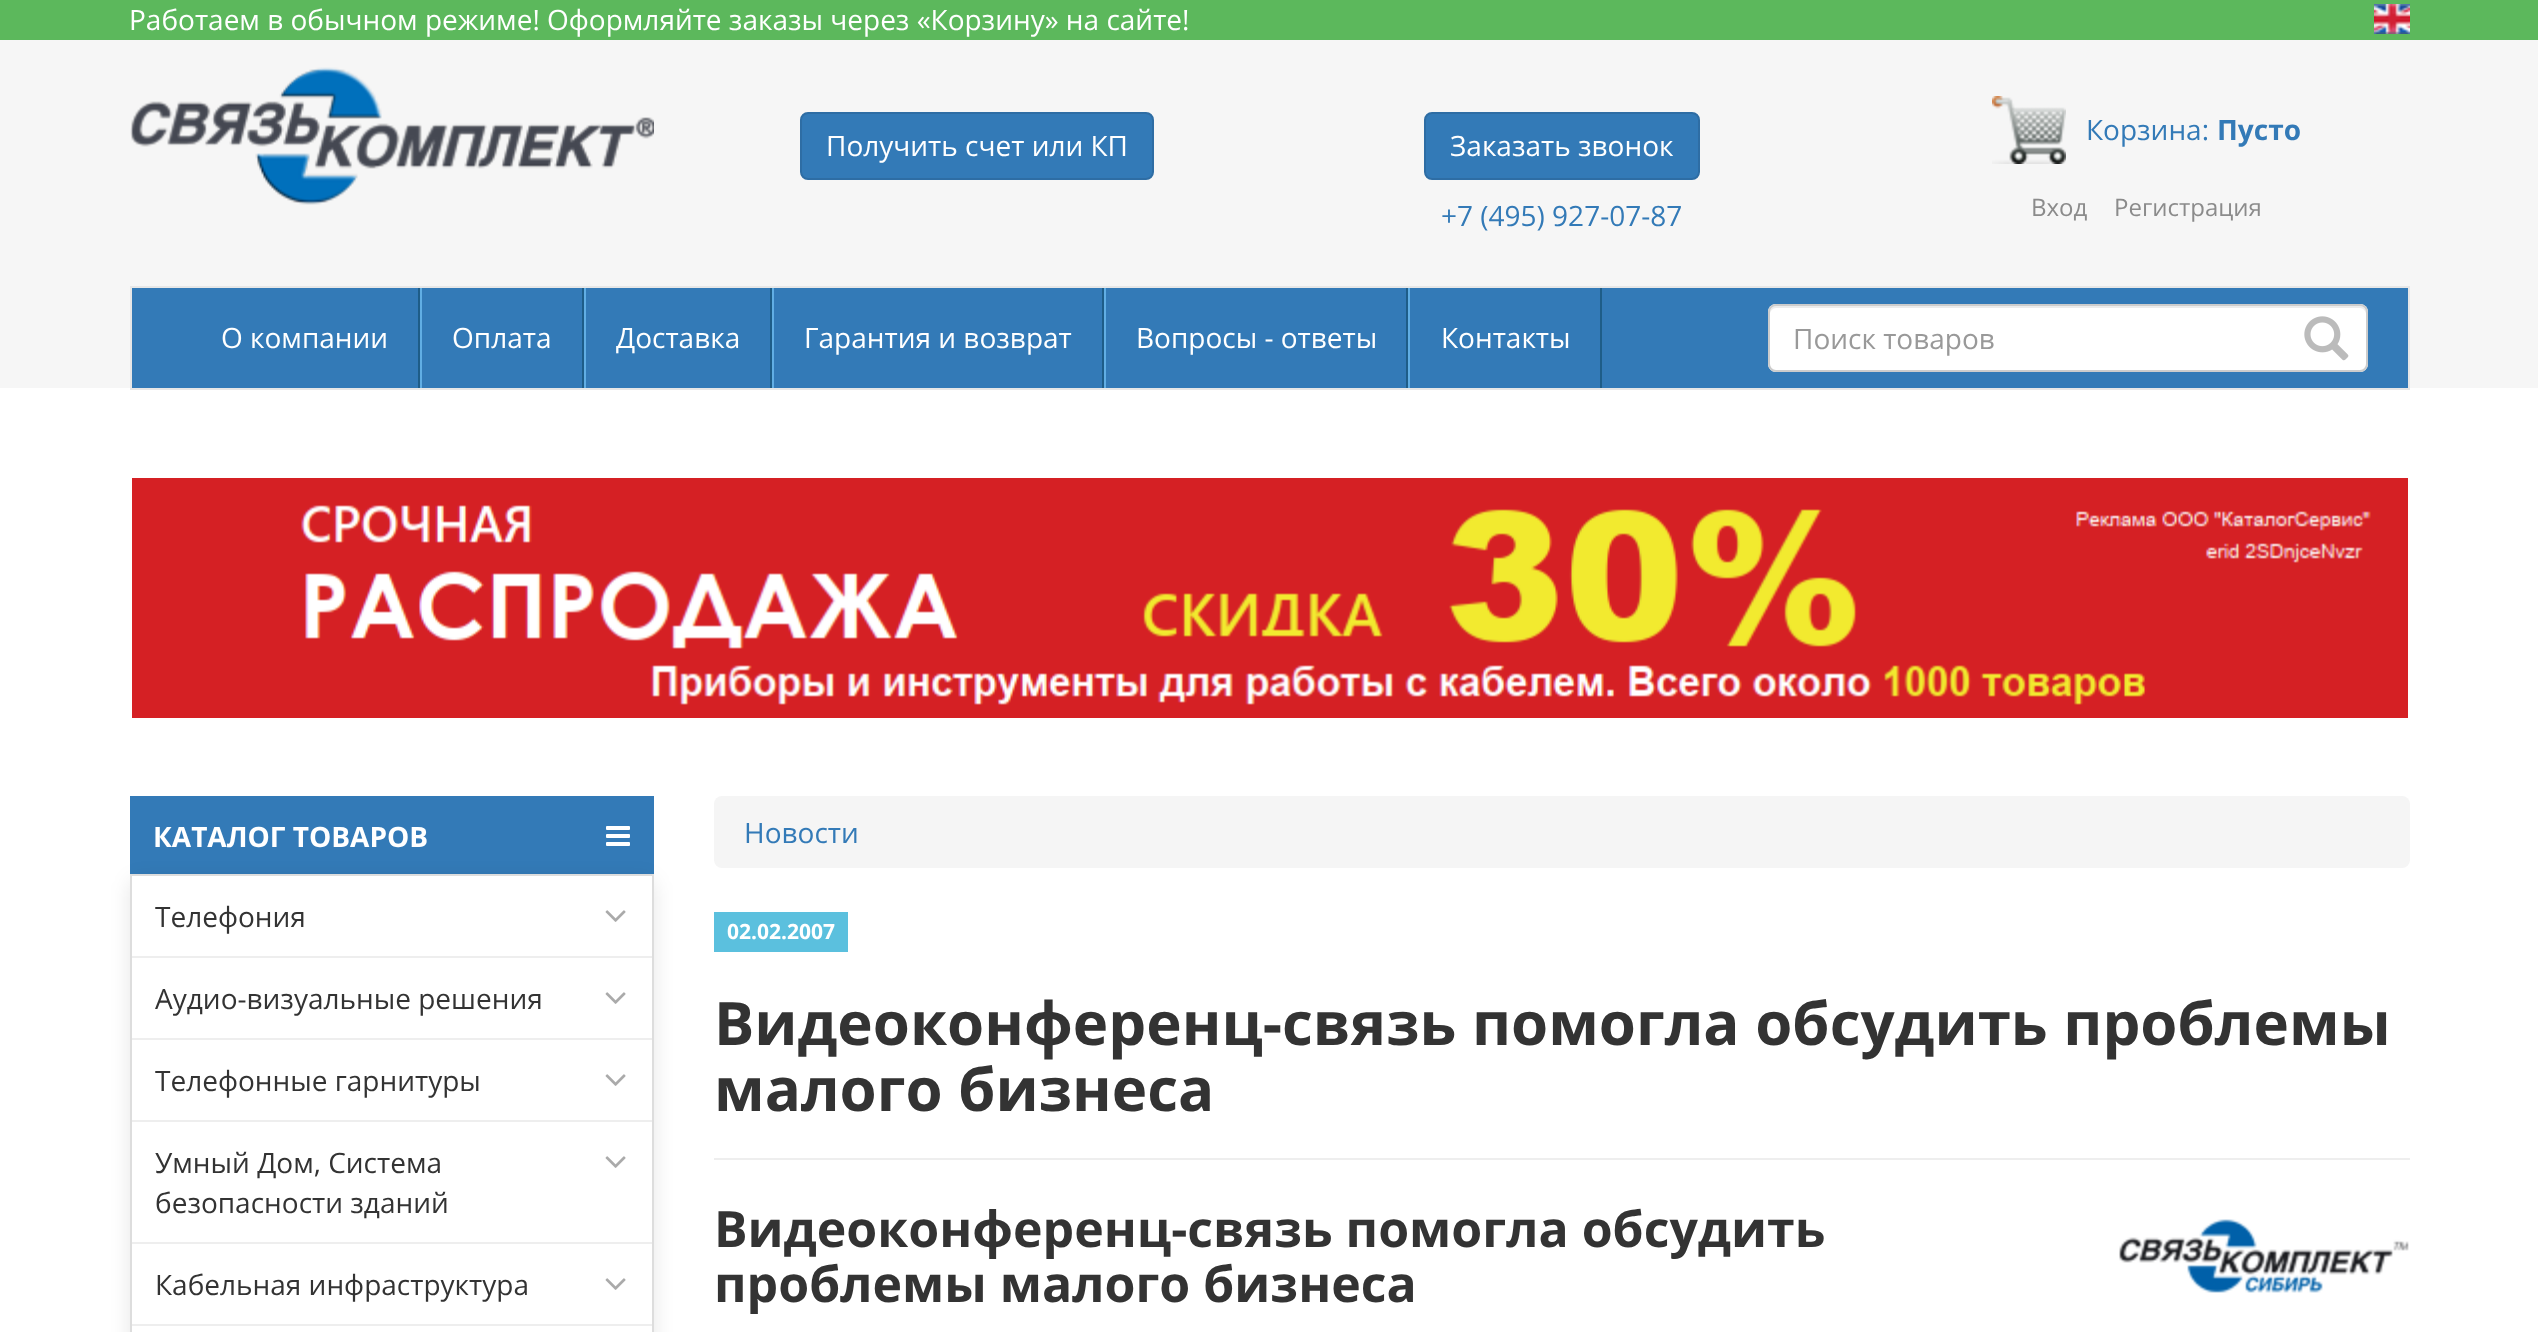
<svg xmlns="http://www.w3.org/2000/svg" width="2538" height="1332">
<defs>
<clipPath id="clip1"><path d="M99 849h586v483h-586zm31 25h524v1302c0 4.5-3.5 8-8 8h-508c-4.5 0-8-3.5-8-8z" clip-rule="evenodd"/></clipPath>
</defs>
<rect width="100%" height="100%" fill="#fff"/>
<rect y="40" width="2538" height="348" fill="#f6f6f6"/>
<rect width="2538" height="40" fill="#5cb85c"/>
<text x="129" y="30" style="font-family:Open Sans;font-size:28px;fill:#fff">Работаем в обычном режиме! Оформляйте заказы через «Корзину» на сайте!</text>
<image x="2374" y="4" width="36" height="30" href="media/1.png"/>
<image x="130" y="67" width="524" height="138" href="media/2.png"/>
<rect x="801" y="113" width="352" height="66" rx="7" fill="#337ab7" stroke="#2e6da4" stroke-width="2"/>
<text x="826" y="156" style="font-family:Open Sans;font-size:28px;fill:#fff">Получить счет или КП</text>
<rect x="1425" y="113" width="274" height="66" rx="7" fill="#337ab7" stroke="#2e6da4" stroke-width="2"/>
<text x="1450" y="156" style="font-family:Open Sans;font-size:28px;fill:#fff">Заказать звонок</text>
<text x="1441" y="226" style="font-family:Open Sans;font-size:28px;fill:#337ab7">+7 (495) 927-07-87</text>
<image x="1992" y="96" width="74" height="68" href="media/3.png"/>
<text x="2086" y="140" style="font-family:Open Sans;font-size:28px;fill:#337ab7">Корзина:</text>
<text x="2217" y="140" style="font-family:Open Sans;font-size:28px;font-weight:bold;fill:#337ab7">Пусто</text>
<text x="2031" y="216" style="font-family:Open Sans;font-size:24px;fill:#8b8b8b">Вход</text>
<text x="2114" y="216" style="font-family:Open Sans;font-size:24px;fill:#8b8b8b">Регистрация</text>
<rect x="131" y="287" width="2278" height="102" fill="#337ab7" stroke="#e7e7e7" stroke-width="2"/>
<rect x="418" y="288" width="2" height="100" fill="#1e5d88"/>
<text x="221" y="348" style="font-family:Open Sans;font-size:28px;fill:#fff">О компании</text>
<rect x="582" y="288" width="2" height="100" fill="#1e5d88"/>
<rect x="420" y="288" width="2" height="100" fill="#61aee4"/>
<text x="452" y="348" style="font-family:Open Sans;font-size:28px;fill:#fff">Оплата</text>
<rect x="770" y="288" width="2" height="100" fill="#1e5d88"/>
<rect x="584" y="288" width="2" height="100" fill="#61aee4"/>
<text x="616" y="348" style="font-family:Open Sans;font-size:28px;fill:#fff">Доставка</text>
<rect x="1102" y="288" width="2" height="100" fill="#1e5d88"/>
<rect x="772" y="288" width="2" height="100" fill="#61aee4"/>
<text x="804" y="348" style="font-family:Open Sans;font-size:28px;fill:#fff">Гарантия и возврат</text>
<rect x="1406" y="288" width="2" height="100" fill="#1e5d88"/>
<rect x="1104" y="288" width="2" height="100" fill="#61aee4"/>
<text x="1136" y="348" style="font-family:Open Sans;font-size:28px;fill:#fff">Вопросы - ответы</text>
<rect x="1600" y="288" width="2" height="100" fill="#1e5d88"/>
<rect x="1408" y="288" width="2" height="100" fill="#61aee4"/>
<text x="1441" y="348" style="font-family:Open Sans;font-size:28px;fill:#fff">Контакты</text>
<rect x="1768" y="304" width="600" height="68" rx="8" fill="#fff"/>
<path d="M1776 308h584c3 0 6 3 6 6v-2c0-3-3-6-6-6h-584c-3 0-6 3-6 6v2c0-3 3-6 6-6z" fill="#ececec"/>
<rect x="1769" y="305" width="598" height="66" rx="7" fill="none" stroke="#ccc" stroke-width="2"/>
<text x="1793" y="349" style="font-family:Open Sans;font-size:28px;fill:#999">Поиск товаров</text>
<image x="2304" y="316" width="45" height="45" href="media/4.png"/>
<image x="132" y="478" width="2276" height="240" href="media/5.png"/>
<rect x="130" y="796" width="524" height="78" fill="#337ab7"/>
<text x="153" y="847" style="font-family:Open Sans;font-size:28px;font-weight:bold;fill:#fff">КАТАЛОГ ТОВАРОВ</text>
<image x="606" y="826" width="24" height="20" href="media/6.png"/>
<g clip-path="url(#clip1)">
<rect x="130" y="880" width="524" height="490" rx="8" fill="#0000001a" filter="blur(10px)"/>
</g>
<rect x="131" y="875" width="522" height="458" fill="none" stroke="#ddd" stroke-width="2"/>
<text x="155" y="927" style="font-family:Open Sans;font-size:28px;fill:#333">Телефония</text>
<image x="605" y="910" width="21" height="12" href="media/7.png"/>
<rect x="132" y="956" width="520" height="2" fill="#eee"/>
<text x="155" y="1009" style="font-family:Open Sans;font-size:28px;fill:#333">Аудио-визуальные решения</text>
<image x="605" y="992" width="21" height="12" href="media/7.png"/>
<rect x="132" y="1038" width="520" height="2" fill="#eee"/>
<text x="155" y="1091" style="font-family:Open Sans;font-size:28px;fill:#333">Телефонные гарнитуры</text>
<image x="605" y="1074" width="21" height="12" href="media/7.png"/>
<rect x="132" y="1120" width="520" height="2" fill="#eee"/>
<text x="155" y="1173" style="font-family:Open Sans;font-size:28px;fill:#333">Умный Дом, Система</text>
<image x="605" y="1156" width="21" height="12" href="media/7.png"/>
<text x="155" y="1213" style="font-family:Open Sans;font-size:28px;fill:#333">безопасности зданий</text>
<rect x="132" y="1242" width="520" height="2" fill="#eee"/>
<text x="155" y="1295" style="font-family:Open Sans;font-size:28px;fill:#333">Кабельная инфраструктура</text>
<image x="605" y="1278" width="21" height="12" href="media/7.png"/>
<rect x="132" y="1324" width="520" height="2" fill="#eee"/>
<rect x="714" y="796" width="1696" height="72" rx="8" fill="#f5f5f5"/>
<text x="744" y="843" style="font-family:Open Sans;font-size:28px;fill:#337ab7">Новости</text>
<rect x="714" y="912" width="134" height="40" fill="#5bc0de"/>
<text x="727" y="939" style="font-family:Open Sans;font-size:21px;font-weight:bold;fill:#fff">02.02.2007</text>
<rect x="714" y="1158" width="1696" height="2" fill="#eee"/>
<text x="714" y="1045" style="font-family:Open Sans;font-size:60px;font-weight:bold;fill:#333">Видеоконференц-связь помогла обсудить проблемы</text>
<text x="714" y="1111" style="font-family:Open Sans;font-size:60px;font-weight:bold;fill:#333">малого бизнеса</text>
<text x="714" y="1247" style="font-family:Open Sans;font-size:50px;font-weight:bold;fill:#333">Видеоконференц-связь помогла обсудить</text>
<text x="714" y="1302" style="font-family:Open Sans;font-size:50px;font-weight:bold;fill:#333">проблемы малого бизнеса</text>
<image x="2119" y="1219" width="290" height="74" href="media/8.png"/>
</svg>
